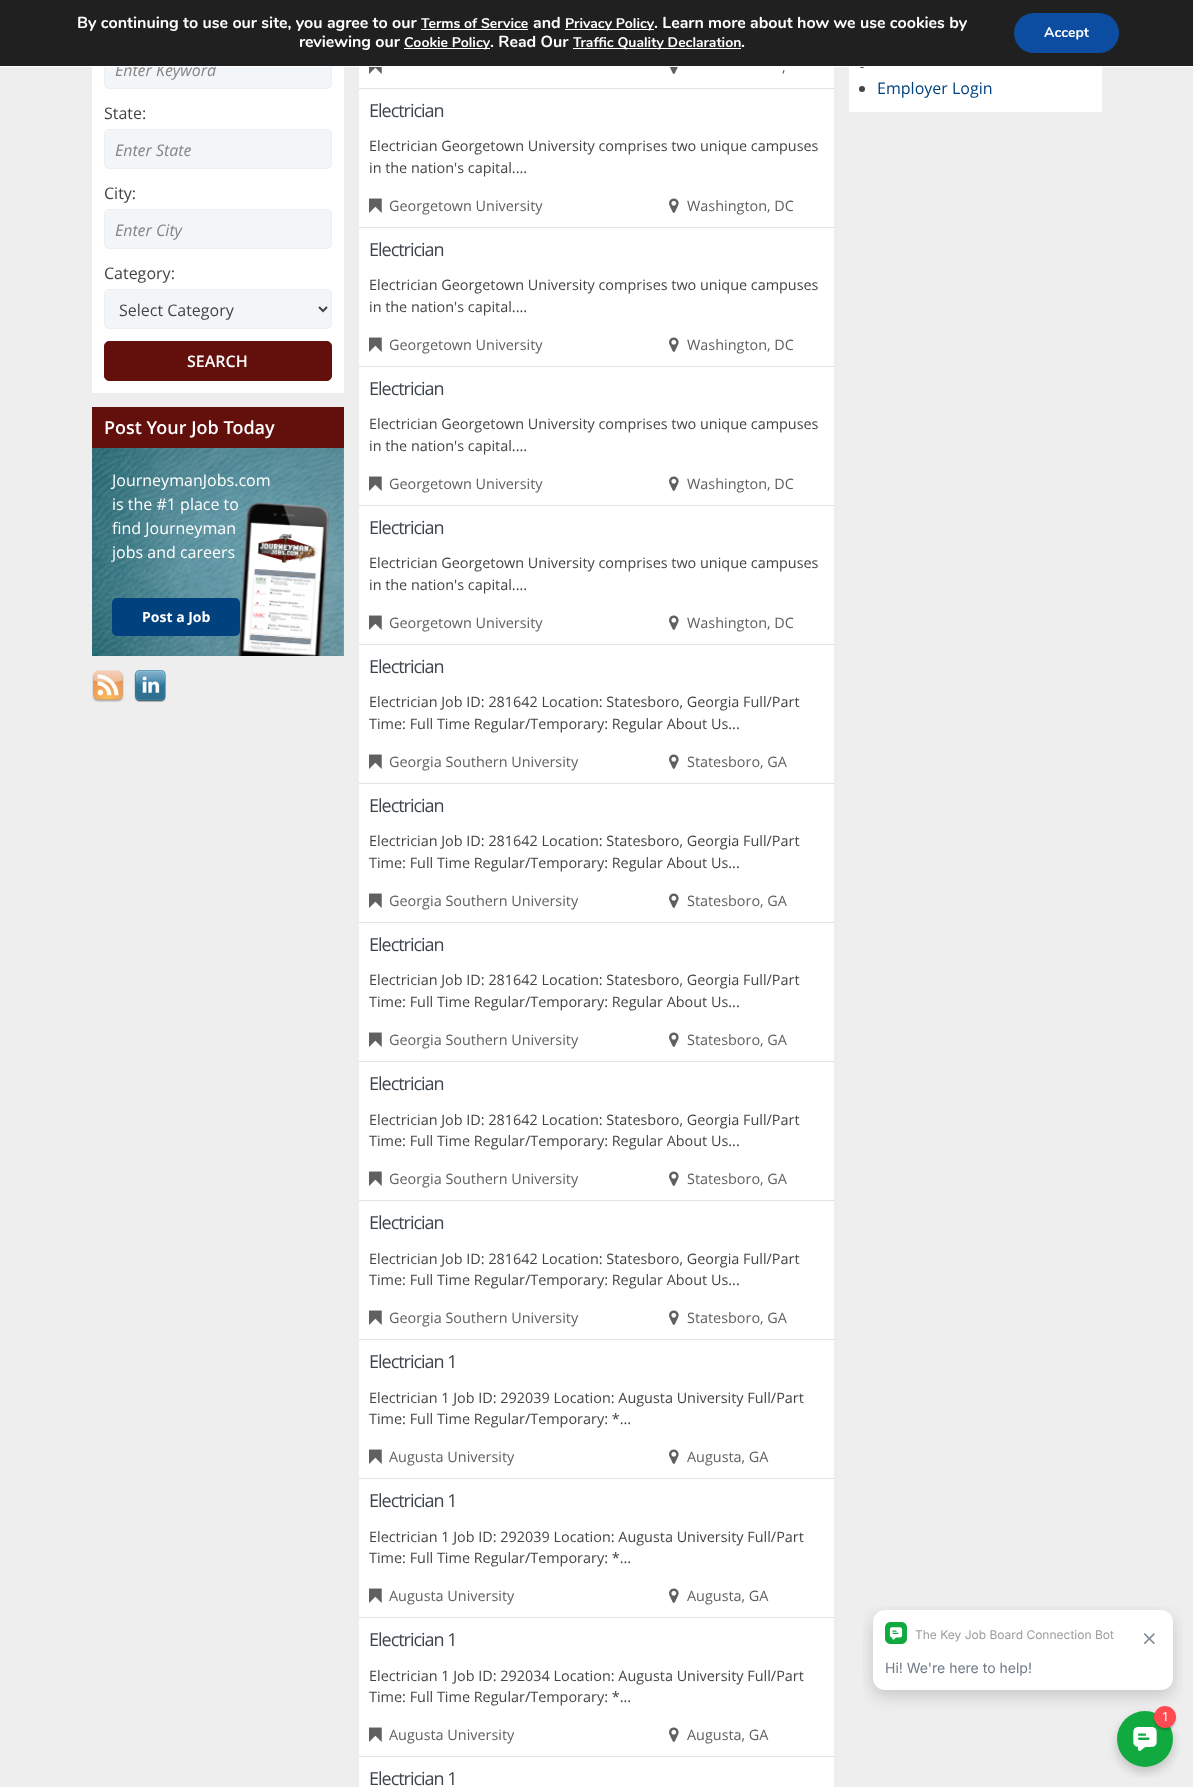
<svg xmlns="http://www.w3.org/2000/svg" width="1193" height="1787">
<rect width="100%" height="100%" fill="#eee"/>
<rect x="92" y="67" width="252" height="326" fill="#fff"/>
<rect x="104.5" y="49.5" width="227" height="39" rx="4.5" fill="#f3f6f9" stroke="#eee"/>
<text x="115" y="76" style="font-family:Open Sans;font-size:16px;font-style:italic;fill:#868585">Enter Keyword</text>
<rect x="849" y="67" width="253" height="45" fill="#fff"/>
<circle cx="862" cy="65" r="3" fill="#444"/>
<rect width="1193" height="66" fill="#202020"/>
<rect y="66" width="1193" height="1" fill="#fff"/>
<text x="77" y="28" style="font-family:Nunito;font-size:16px;font-weight:bold;fill:#fff">By continuing to use our site, you agree to our</text>
<text x="421" y="28" style="font-family:Nunito;font-size:14px;font-weight:bold;fill:#fff">Terms of Service</text>
<rect x="421" y="29" width="107" height="1" fill="#fff"/>
<text x="533" y="28" style="font-family:Nunito;font-size:16px;font-weight:bold;fill:#fff">and</text>
<rect x="565" y="29" width="89" height="1" fill="#fff"/>
<text x="565" y="28" style="font-family:Nunito;font-size:14px;font-weight:bold;fill:#fff">Privacy Policy</text>
<text x="654" y="28" style="font-family:Nunito;font-size:16px;font-weight:bold;fill:#fff">. Learn more about how we use cookies by</text>
<text x="299" y="47" style="font-family:Nunito;font-size:16px;font-weight:bold;fill:#fff">reviewing our</text>
<rect x="404" y="48" width="86" height="1" fill="#fff"/>
<text x="404" y="47" style="font-family:Nunito;font-size:14px;font-weight:bold;fill:#fff">Cookie Policy</text>
<text x="490" y="47" style="font-family:Nunito;font-size:16px;font-weight:bold;fill:#fff">. Read Our</text>
<rect x="573" y="48" width="168" height="1" fill="#fff"/>
<text x="573" y="47" style="font-family:Nunito;font-size:14px;font-weight:bold;fill:#fff">Traffic Quality Declaration</text>
<text x="741" y="47" style="font-family:Nunito;font-size:16px;font-weight:bold;fill:#fff">.</text>
<rect x="1014" y="13" width="105" height="40" rx="20" fill="#0c4da2"/>
<text x="1044" y="37" style="font-family:Nunito;font-size:14px;font-weight:bold;fill:#fff">Accept</text>
<text x="104" y="119" style="font-family:Open Sans;font-size:16px;fill:#444">State:</text>
<rect x="104.5" y="129.5" width="227" height="39" rx="4.5" fill="#f3f6f9" stroke="#eee"/>
<text x="115" y="156" style="font-family:Open Sans;font-size:16px;font-style:italic;fill:#868585">Enter State</text>
<text x="104" y="199" style="font-family:Open Sans;font-size:16px;fill:#444">City:</text>
<rect x="104.5" y="209.5" width="227" height="39" rx="4.5" fill="#f3f6f9" stroke="#eee"/>
<text x="115" y="236" style="font-family:Open Sans;font-size:16px;font-style:italic;fill:#868585">Enter City</text>
<text x="104" y="279" style="font-family:Open Sans;font-size:16px;fill:#444">Category:</text>
<rect x="104.5" y="289.5" width="227" height="39" rx="4.5" fill="#f3f6f9" stroke="#eee"/>
<path d="M319 307l4 4l4-4" fill="none" stroke="#444" stroke-width="2"/>
<text x="119" y="316" style="font-family:Open Sans;font-size:16px;fill:#444">Select Category</text>
<rect x="104.5" y="341.5" width="227" height="39" rx="4.5" fill="#63100d" stroke="#63100d"/>
<text x="187" y="367" style="font-family:Open Sans;font-size:16px;font-weight:600;fill:#fff">SEARCH</text>
<rect x="92" y="407" width="252" height="41" fill="#63100d"/>
<text x="104" y="434" style="font-family:Open Sans;font-size:18px;font-weight:600;fill:#fff">Post Your Job Today</text>
<image x="92" y="448" width="252" height="208" href="media/1.png"/>
<text x="112" y="486" style="font-family:Open Sans;font-size:16px;fill:#fff">JourneymanJobs.com</text>
<text x="112" y="510" style="font-family:Open Sans;font-size:16px;fill:#fff">is the #1 place to</text>
<text x="112" y="534" style="font-family:Open Sans;font-size:16px;fill:#fff">find Journeyman</text>
<text x="112" y="558" style="font-family:Open Sans;font-size:16px;fill:#fff">jobs and careers</text>
<rect x="112" y="598" width="128" height="38" rx="5" fill="#00417e"/>
<text x="142" y="622" style="font-family:Open Sans;font-size:14px;font-weight:bold;fill:#fff">Post a Job</text>
<image x="92" y="670" width="32" height="32" href="media/2.png"/>
<image x="134" y="670" width="32" height="32" href="media/3.png"/>
<rect x="359" y="67" width="475" height="1720" fill="#fff"/>
<image x="369" y="67" width="13" height="7" href="media/4.png"/>
<image x="669" y="67" width="9" height="7" href="media/5.png"/>
<text x="782" y="72" style="font-family:Open Sans;font-size:14.4px;fill:#606060">,</text>
<rect x="359" y="88" width="475" height="1" fill="#e2e2e2"/>
<text x="369" y="117" style="font-family:Open Sans;font-size:18px;letter-spacing:-1px;fill:#3d454c">Electrician</text>
<text x="369" y="151" style="font-family:Open Sans;font-size:14.4px;fill:#444">Electrician Georgetown University comprises two unique campuses</text>
<text x="369" y="173" style="font-family:Open Sans;font-size:14.4px;fill:#444">in the nation's capital....</text>
<image x="369" y="198" width="13" height="15" href="media/6.png"/>
<text x="389" y="211" style="font-family:Open Sans;font-size:14.4px;fill:#606060">Georgetown University</text>
<image x="669" y="198" width="10" height="15" href="media/7.png"/>
<text x="687" y="211" style="font-family:Open Sans;font-size:14.4px;fill:#606060">Washington, DC</text>
<rect x="359" y="227" width="475" height="1" fill="#e2e2e2"/>
<text x="369" y="256" style="font-family:Open Sans;font-size:18px;letter-spacing:-1px;fill:#3d454c">Electrician</text>
<text x="369" y="290" style="font-family:Open Sans;font-size:14.4px;fill:#444">Electrician Georgetown University comprises two unique campuses</text>
<text x="369" y="312" style="font-family:Open Sans;font-size:14.4px;fill:#444">in the nation's capital....</text>
<image x="369" y="337" width="13" height="15" href="media/6.png"/>
<text x="389" y="350" style="font-family:Open Sans;font-size:14.4px;fill:#606060">Georgetown University</text>
<image x="669" y="337" width="10" height="15" href="media/7.png"/>
<text x="687" y="350" style="font-family:Open Sans;font-size:14.4px;fill:#606060">Washington, DC</text>
<rect x="359" y="366" width="475" height="1" fill="#e2e2e2"/>
<text x="369" y="395" style="font-family:Open Sans;font-size:18px;letter-spacing:-1px;fill:#3d454c">Electrician</text>
<text x="369" y="429" style="font-family:Open Sans;font-size:14.4px;fill:#444">Electrician Georgetown University comprises two unique campuses</text>
<text x="369" y="451" style="font-family:Open Sans;font-size:14.4px;fill:#444">in the nation's capital....</text>
<image x="369" y="476" width="13" height="15" href="media/6.png"/>
<text x="389" y="489" style="font-family:Open Sans;font-size:14.4px;fill:#606060">Georgetown University</text>
<image x="669" y="476" width="10" height="15" href="media/7.png"/>
<text x="687" y="489" style="font-family:Open Sans;font-size:14.4px;fill:#606060">Washington, DC</text>
<rect x="359" y="505" width="475" height="1" fill="#e2e2e2"/>
<text x="369" y="534" style="font-family:Open Sans;font-size:18px;letter-spacing:-1px;fill:#3d454c">Electrician</text>
<text x="369" y="568" style="font-family:Open Sans;font-size:14.4px;fill:#444">Electrician Georgetown University comprises two unique campuses</text>
<text x="369" y="590" style="font-family:Open Sans;font-size:14.4px;fill:#444">in the nation's capital....</text>
<image x="369" y="615" width="13" height="15" href="media/6.png"/>
<text x="389" y="628" style="font-family:Open Sans;font-size:14.4px;fill:#606060">Georgetown University</text>
<image x="669" y="615" width="10" height="15" href="media/7.png"/>
<text x="687" y="628" style="font-family:Open Sans;font-size:14.4px;fill:#606060">Washington, DC</text>
<rect x="359" y="644" width="475" height="1" fill="#e2e2e2"/>
<text x="369" y="673" style="font-family:Open Sans;font-size:18px;letter-spacing:-1px;fill:#3d454c">Electrician</text>
<text x="369" y="707" style="font-family:Open Sans;font-size:14.4px;fill:#444">Electrician Job ID: 281642 Location: Statesboro, Georgia Full/Part</text>
<text x="369" y="729" style="font-family:Open Sans;font-size:14.4px;fill:#444">Time: Full Time Regular/Temporary: Regular About Us...</text>
<image x="369" y="754" width="13" height="15" href="media/6.png"/>
<text x="389" y="767" style="font-family:Open Sans;font-size:14.4px;fill:#606060">Georgia Southern University</text>
<image x="669" y="754" width="10" height="15" href="media/7.png"/>
<text x="687" y="767" style="font-family:Open Sans;font-size:14.4px;fill:#606060">Statesboro, GA</text>
<rect x="359" y="783" width="475" height="1" fill="#e2e2e2"/>
<text x="369" y="812" style="font-family:Open Sans;font-size:18px;letter-spacing:-1px;fill:#3d454c">Electrician</text>
<text x="369" y="846" style="font-family:Open Sans;font-size:14.4px;fill:#444">Electrician Job ID: 281642 Location: Statesboro, Georgia Full/Part</text>
<text x="369" y="868" style="font-family:Open Sans;font-size:14.4px;fill:#444">Time: Full Time Regular/Temporary: Regular About Us...</text>
<image x="369" y="893" width="13" height="15" href="media/6.png"/>
<text x="389" y="906" style="font-family:Open Sans;font-size:14.4px;fill:#606060">Georgia Southern University</text>
<image x="669" y="893" width="10" height="15" href="media/7.png"/>
<text x="687" y="906" style="font-family:Open Sans;font-size:14.4px;fill:#606060">Statesboro, GA</text>
<rect x="359" y="922" width="475" height="1" fill="#e2e2e2"/>
<text x="369" y="951" style="font-family:Open Sans;font-size:18px;letter-spacing:-1px;fill:#3d454c">Electrician</text>
<text x="369" y="985" style="font-family:Open Sans;font-size:14.4px;fill:#444">Electrician Job ID: 281642 Location: Statesboro, Georgia Full/Part</text>
<text x="369" y="1007" style="font-family:Open Sans;font-size:14.4px;fill:#444">Time: Full Time Regular/Temporary: Regular About Us...</text>
<image x="369" y="1032" width="13" height="15" href="media/6.png"/>
<text x="389" y="1045" style="font-family:Open Sans;font-size:14.4px;fill:#606060">Georgia Southern University</text>
<image x="669" y="1032" width="10" height="15" href="media/7.png"/>
<text x="687" y="1045" style="font-family:Open Sans;font-size:14.4px;fill:#606060">Statesboro, GA</text>
<rect x="359" y="1061" width="475" height="1" fill="#e2e2e2"/>
<text x="369" y="1090" style="font-family:Open Sans;font-size:18px;letter-spacing:-1px;fill:#3d454c">Electrician</text>
<text x="369" y="1125" style="font-family:Open Sans;font-size:14.4px;fill:#444">Electrician Job ID: 281642 Location: Statesboro, Georgia Full/Part</text>
<text x="369" y="1146" style="font-family:Open Sans;font-size:14.4px;fill:#444">Time: Full Time Regular/Temporary: Regular About Us...</text>
<image x="369" y="1171" width="13" height="15" href="media/6.png"/>
<text x="389" y="1184" style="font-family:Open Sans;font-size:14.4px;fill:#606060">Georgia Southern University</text>
<image x="669" y="1171" width="10" height="15" href="media/7.png"/>
<text x="687" y="1184" style="font-family:Open Sans;font-size:14.4px;fill:#606060">Statesboro, GA</text>
<rect x="359" y="1200" width="475" height="1" fill="#e2e2e2"/>
<text x="369" y="1229" style="font-family:Open Sans;font-size:18px;letter-spacing:-1px;fill:#3d454c">Electrician</text>
<text x="369" y="1264" style="font-family:Open Sans;font-size:14.4px;fill:#444">Electrician Job ID: 281642 Location: Statesboro, Georgia Full/Part</text>
<text x="369" y="1285" style="font-family:Open Sans;font-size:14.4px;fill:#444">Time: Full Time Regular/Temporary: Regular About Us...</text>
<image x="369" y="1310" width="13" height="15" href="media/6.png"/>
<text x="389" y="1323" style="font-family:Open Sans;font-size:14.4px;fill:#606060">Georgia Southern University</text>
<image x="669" y="1310" width="10" height="15" href="media/7.png"/>
<text x="687" y="1323" style="font-family:Open Sans;font-size:14.4px;fill:#606060">Statesboro, GA</text>
<rect x="359" y="1339" width="475" height="1" fill="#e2e2e2"/>
<text x="369" y="1368" style="font-family:Open Sans;font-size:18px;letter-spacing:-1px;fill:#3d454c">Electrician 1</text>
<text x="369" y="1403" style="font-family:Open Sans;font-size:14.4px;fill:#444">Electrician 1 Job ID: 292039 Location: Augusta University Full/Part</text>
<text x="369" y="1424" style="font-family:Open Sans;font-size:14.4px;fill:#444">Time: Full Time Regular/Temporary: *...</text>
<image x="369" y="1449" width="13" height="15" href="media/6.png"/>
<text x="389" y="1462" style="font-family:Open Sans;font-size:14.4px;fill:#606060">Augusta University</text>
<image x="669" y="1449" width="10" height="15" href="media/7.png"/>
<text x="687" y="1462" style="font-family:Open Sans;font-size:14.4px;fill:#606060">Augusta, GA</text>
<rect x="359" y="1478" width="475" height="1" fill="#e2e2e2"/>
<text x="369" y="1507" style="font-family:Open Sans;font-size:18px;letter-spacing:-1px;fill:#3d454c">Electrician 1</text>
<text x="369" y="1542" style="font-family:Open Sans;font-size:14.4px;fill:#444">Electrician 1 Job ID: 292039 Location: Augusta University Full/Part</text>
<text x="369" y="1563" style="font-family:Open Sans;font-size:14.4px;fill:#444">Time: Full Time Regular/Temporary: *...</text>
<image x="369" y="1588" width="13" height="15" href="media/6.png"/>
<text x="389" y="1601" style="font-family:Open Sans;font-size:14.4px;fill:#606060">Augusta University</text>
<image x="669" y="1588" width="10" height="15" href="media/7.png"/>
<text x="687" y="1601" style="font-family:Open Sans;font-size:14.4px;fill:#606060">Augusta, GA</text>
<rect x="359" y="1617" width="475" height="1" fill="#e2e2e2"/>
<text x="369" y="1646" style="font-family:Open Sans;font-size:18px;letter-spacing:-1px;fill:#3d454c">Electrician 1</text>
<text x="369" y="1681" style="font-family:Open Sans;font-size:14.4px;fill:#444">Electrician 1 Job ID: 292034 Location: Augusta University Full/Part</text>
<text x="369" y="1702" style="font-family:Open Sans;font-size:14.4px;fill:#444">Time: Full Time Regular/Temporary: *...</text>
<image x="369" y="1727" width="13" height="15" href="media/6.png"/>
<text x="389" y="1740" style="font-family:Open Sans;font-size:14.4px;fill:#606060">Augusta University</text>
<image x="669" y="1727" width="10" height="15" href="media/7.png"/>
<text x="687" y="1740" style="font-family:Open Sans;font-size:14.4px;fill:#606060">Augusta, GA</text>
<rect x="359" y="1756" width="475" height="1" fill="#e2e2e2"/>
<text x="369" y="1785" style="font-family:Open Sans;font-size:18px;letter-spacing:-1px;fill:#3d454c">Electrician 1</text>
<circle cx="862" cy="89" r="3" fill="#444"/>
<text x="877" y="94" style="font-family:Open Sans;font-size:16px;fill:#00417e">Employer Login</text>
<image x="863" y="1606" width="320" height="172" href="media/8.png"/>
</svg>
